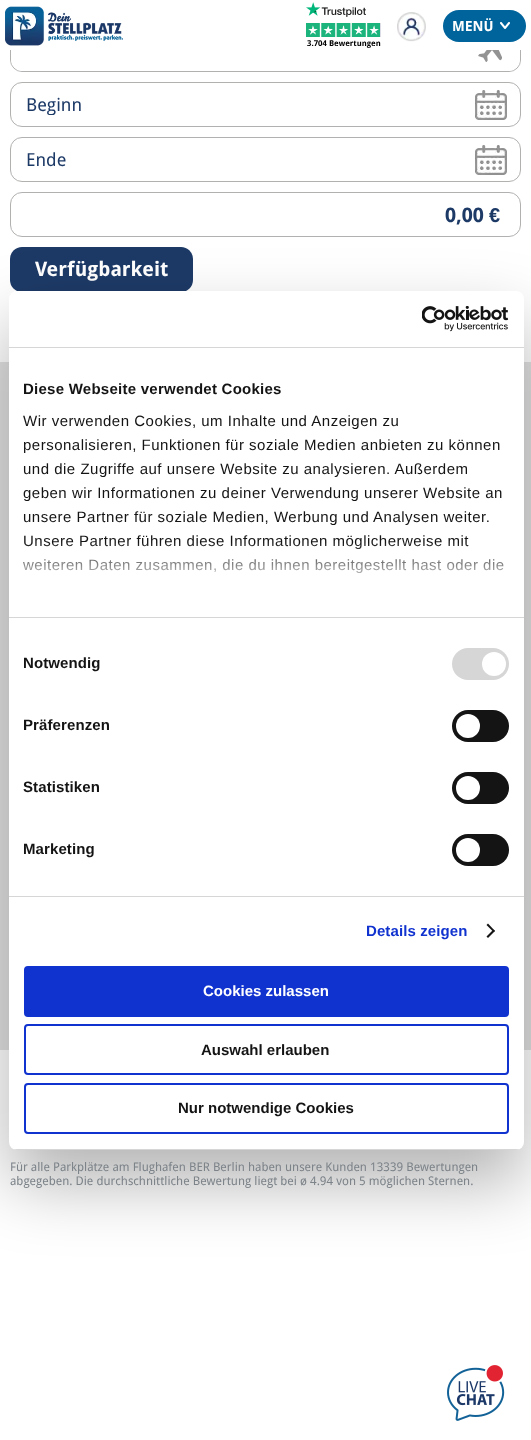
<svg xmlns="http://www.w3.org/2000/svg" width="531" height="1440">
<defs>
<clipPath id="clip1"><rect x="26" y="94" width="494" height="21"/></clipPath>
<linearGradient id="g1" gradientUnits="userSpaceOnUse" x1="260" y1="617" x2="260" y2="542"><stop offset="0" stop-color="#fff"/><stop offset="0.5" stop-color="#fff" stop-opacity="0.8"/><stop offset="1" stop-color="#fff" stop-opacity="0"/></linearGradient>
<clipPath id="clip2"><rect x="9" y="291" width="515" height="859" rx="8"/></clipPath>
</defs>
<rect width="100%" height="100%" fill="#fff"/>
<rect x="10.5" y="25.5" width="510" height="46" rx="11.5" fill="none" stroke="#b1b1b0"/>
<rect x="11" y="26" width="509" height="45" rx="12" fill="#fff"/>
<rect x="10" y="25" width="511" height="25" fill="#fff"/>
<image x="5" y="6" width="118" height="40" href="media/1.png"/>
<image x="397" y="12" width="29" height="30" href="media/2.png"/>
<rect x="443" y="10" width="83" height="32" rx="16" fill="#00649c"/>
<text x="452" y="31" style="font-family:Droid Sans;font-size:14px;font-weight:bold;fill:#fff">MENÜ</text>
<image x="500" y="22" width="10" height="7" href="media/3.png"/>
<image x="306" y="2" width="60" height="15" href="media/4.png"/>
<rect x="306" y="23" width="74" height="14" fill="#1bb47c"/>
<image x="308" y="23" width="71" height="14" href="media/5.png"/>
<rect x="380" y="23" width="1" height="14" fill="#dcdce6"/>
<text x="307" y="46" style="font-family:Droid Sans;font-size:8px;font-weight:bold;fill:#000">3.704 Bewertungen</text>
<image x="478" y="50" width="24" height="12" href="media/6.png"/>
<rect x="10.5" y="82.5" width="510" height="44" rx="11.5" fill="none" stroke="#b1b1b0"/>
<g clip-path="url(#clip1)">
<text x="26" y="111" style="font-family:Droid Sans;font-size:18px;fill:#1d3a67">Beginn</text>
</g>
<image x="475" y="90" width="32" height="30" href="media/7.png"/>
<rect x="10.5" y="137.5" width="510" height="44" rx="11.5" fill="none" stroke="#b1b1b0"/>
<text x="26" y="166" style="font-family:Droid Sans;font-size:18px;fill:#1d3a67">Ende</text>
<image x="475" y="145" width="32" height="30" href="media/7.png"/>
<rect x="10.5" y="192.5" width="510" height="44" rx="11.5" fill="none" stroke="#b1b1b0"/>
<text x="445" y="222" style="font-family:Droid Sans;font-size:20px;font-weight:bold;fill:#1d3a67">0,00</text>
<text x="489" y="222" style="font-family:Liberation Sans;font-size:20px;font-weight:bold;fill:#1d3a67">€</text>
<rect x="10" y="247" width="183" height="45" rx="12" fill="#1d3a67"/>
<text x="35" y="276" style="font-family:Droid Sans;font-size:20px;font-weight:bold;fill:#fff">Verfügbarkeit</text>
<rect y="362" width="531" height="688" fill="#e2e2e2"/>
<rect x="9" y="323" width="515" height="859" rx="8" fill="#0000004d" filter="blur(34px)"/>
<rect x="9" y="291" width="515" height="859" rx="8" fill="#fff"/>
<rect x="9" y="347" width="515" height="1" fill="#d6d6d6"/>
<image x="422" y="306" width="87" height="26" href="media/8.png"/>
<rect x="9" y="617" width="515" height="1" fill="#d6d6d6"/>
<text x="23" y="394" style="font-family:Liberation Sans;font-size:15px;font-weight:bold;letter-spacing:0.25px;fill:#141414">Diese Webseite verwendet Cookies</text>
<text x="23" y="426" style="font-family:Liberation Sans;font-size:15px;letter-spacing:0.5px;fill:#141414">Wir verwenden Cookies, um Inhalte und Anzeigen zu</text>
<text x="23" y="450" style="font-family:Liberation Sans;font-size:15px;letter-spacing:0.5px;fill:#141414">personalisieren, Funktionen für soziale Medien anbieten zu können</text>
<text x="23" y="474" style="font-family:Liberation Sans;font-size:15px;letter-spacing:0.5px;fill:#141414">und die Zugriffe auf unsere Website zu analysieren. Außerdem</text>
<text x="23" y="498" style="font-family:Liberation Sans;font-size:15px;letter-spacing:0.5px;fill:#141414">geben wir Informationen zu deiner Verwendung unserer Website an</text>
<text x="23" y="522" style="font-family:Liberation Sans;font-size:15px;letter-spacing:0.5px;fill:#141414">unsere Partner für soziale Medien, Werbung und Analysen weiter.</text>
<text x="23" y="546" style="font-family:Liberation Sans;font-size:15px;letter-spacing:0.5px;fill:#141414">Unsere Partner führen diese Informationen möglicherweise mit</text>
<text x="23" y="570" style="font-family:Liberation Sans;font-size:15px;letter-spacing:0.5px;fill:#141414">weiteren Daten zusammen, die du ihnen bereitgestellt hast oder die</text>
<rect x="23" y="543" width="481" height="31" fill="url(#g1)"/>
<rect x="9" y="896" width="515" height="1" fill="#d6d6d6"/>
<text x="23" y="668" style="font-family:Liberation Sans;font-size:15px;font-weight:bold;letter-spacing:0.1px;fill:#141414">Notwendig</text>
<rect x="452" y="648" width="57" height="32" rx="16" fill="#d6d6d6"/>
<circle cx="494" cy="664" r="12" fill="#fff"/>
<text x="23" y="730" style="font-family:Liberation Sans;font-size:15px;font-weight:bold;letter-spacing:0.1px;fill:#141414">Präferenzen</text>
<rect x="452" y="710" width="57" height="32" rx="16" fill="#141414"/>
<circle cx="468" cy="726" r="12" fill="#fff"/>
<text x="23" y="792" style="font-family:Liberation Sans;font-size:15px;font-weight:bold;letter-spacing:0.1px;fill:#141414">Statistiken</text>
<rect x="452" y="772" width="57" height="32" rx="16" fill="#141414"/>
<circle cx="468" cy="788" r="12" fill="#fff"/>
<text x="23" y="854" style="font-family:Liberation Sans;font-size:15px;font-weight:bold;letter-spacing:0.1px;fill:#141414">Marketing</text>
<rect x="452" y="834" width="57" height="32" rx="16" fill="#141414"/>
<circle cx="468" cy="850" r="12" fill="#fff"/>
<text x="366" y="936" style="font-family:Liberation Sans;font-size:15px;font-weight:bold;letter-spacing:0.1px;fill:#1032cf">Details zeigen</text>
<path d="M488 923.5l7 7.5l-1.5 1l-7-7z" fill="#141414"/>
<path d="M493.5 929.5l1.5 1.5l-7 7l-1.5-1.5z" fill="#141414"/>
<g clip-path="url(#clip2)">
<rect x="9" y="1149" width="515" height="1" fill="#d6d6d6"/>
</g>
<rect x="25" y="967" width="483" height="49" rx="3" fill="#1032cf" stroke="#1032cf" stroke-width="2"/>
<text x="203" y="996" style="font-family:Liberation Sans;font-size:15px;font-weight:bold;fill:#fff">Cookies zulassen</text>
<rect x="25" y="1025" width="483" height="49" rx="3" fill="none" stroke="#1032cf" stroke-width="2"/>
<text x="201" y="1055" style="font-family:Liberation Sans;font-size:15px;font-weight:bold;fill:#141414">Auswahl erlauben</text>
<rect x="25" y="1084" width="483" height="49" rx="3" fill="none" stroke="#1032cf" stroke-width="2"/>
<text x="178" y="1113" style="font-family:Liberation Sans;font-size:15px;font-weight:bold;fill:#141414">Nur notwendige Cookies</text>
<text x="10" y="1171" style="font-family:Droid Sans;font-size:12px;fill:#7c8389">Für alle Parkplätze am Flughafen BER Berlin haben unsere Kunden 13339 Bewertungen</text>
<text x="10" y="1185" style="font-family:Droid Sans;font-size:12px;fill:#7c8389">abgegeben. Die durchschnittliche Bewertung liegt bei ø 4.94 von 5 möglichen Sternen.</text>
<image x="447" y="1365" width="58" height="56" href="media/9.png"/>
</svg>
